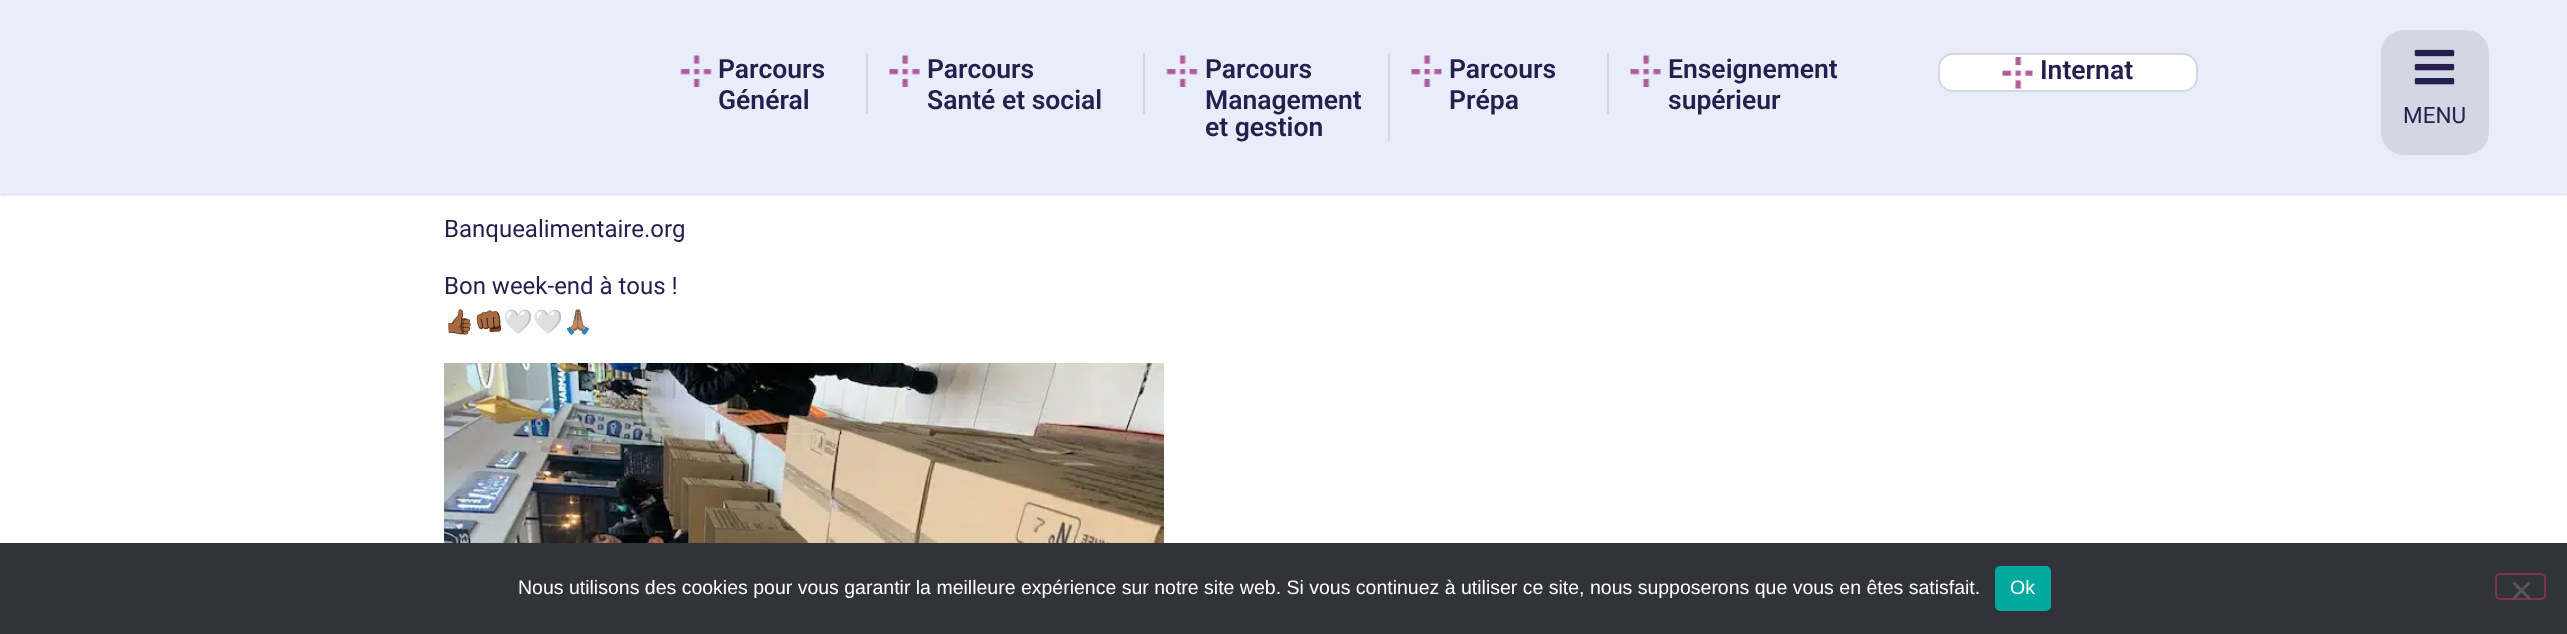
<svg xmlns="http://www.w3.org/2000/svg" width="2567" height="634">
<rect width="100%" height="100%" fill="#fff"/>
<rect y="2" width="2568" height="193" fill="#d2d7e3" filter="blur(1.5px)"/>
<rect width="2567" height="194" fill="#e9edfa"/>
<rect x="866" y="53" width="2" height="61" fill="#d2d7e3"/>
<image x="680" y="55" width="32" height="32" href="media/1.png"/>
<text x="718" y="78" style="font-family:Roboto;font-size:26.5px;font-weight:600;fill:#261e4d">Parcours</text>
<text x="718" y="109" style="font-family:Roboto;font-size:26.5px;font-weight:600;fill:#261e4d">Général</text>
<rect x="1143" y="53" width="2" height="61" fill="#d2d7e3"/>
<image x="889" y="55" width="31" height="32" href="media/2.png"/>
<text x="927" y="78" style="font-family:Roboto;font-size:26.5px;font-weight:600;fill:#261e4d">Parcours</text>
<text x="927" y="109" style="font-family:Roboto;font-size:26.5px;font-weight:600;fill:#261e4d">Santé et social</text>
<rect x="1388" y="53" width="2" height="88" fill="#d2d7e3"/>
<image x="1166" y="55" width="32" height="32" href="media/3.png"/>
<text x="1205" y="78" style="font-family:Roboto;font-size:26.5px;font-weight:600;fill:#261e4d">Parcours</text>
<text x="1205" y="109" style="font-family:Roboto;font-size:26.5px;font-weight:600;fill:#261e4d">Management</text>
<text x="1205" y="136" style="font-family:Roboto;font-size:26.5px;font-weight:600;fill:#261e4d">et gestion</text>
<rect x="1607" y="53" width="2" height="61" fill="#d2d7e3"/>
<image x="1411" y="55" width="31" height="32" href="media/2.png"/>
<text x="1449" y="78" style="font-family:Roboto;font-size:26.5px;font-weight:600;fill:#261e4d">Parcours</text>
<text x="1449" y="109" style="font-family:Roboto;font-size:26.5px;font-weight:600;fill:#261e4d">Prépa</text>
<image x="1630" y="55" width="31" height="32" href="media/2.png"/>
<text x="1668" y="78" style="font-family:Roboto;font-size:26.5px;font-weight:600;fill:#261e4d">Enseignement</text>
<text x="1668" y="109" style="font-family:Roboto;font-size:26.5px;font-weight:600;fill:#261e4d">supérieur</text>
<rect x="1939" y="54" width="258" height="37" rx="14" fill="#fff" stroke="#d2d7e3" stroke-width="2"/>
<image x="2002" y="57" width="31" height="32" href="media/4.png"/>
<text x="2040" y="79" style="font-family:Roboto;font-size:26.5px;font-weight:600;fill:#261e4d">Internat</text>
<rect x="2381" y="30" width="108" height="125" rx="23" fill="#d2d7e3"/>
<image x="2414" y="49" width="41" height="36" href="media/5.png"/>
<text x="2403" y="123" style="font-family:Roboto;font-size:22.5px;fill:#261e4d">MENU</text>
<text x="444" y="237" style="font-family:Roboto;font-size:24px;fill:#261e4d">Banquealimentaire.org</text>
<text x="444" y="294" style="font-family:Roboto;font-size:24px;fill:#261e4d">Bon week-end à tous !</text>
<text x="444" y="330" style="font-family:Noto Color Emoji;font-size:24px;fill:#261e4d">👍🏾👊🏾🤍🤍🙏🏽</text>
<image x="444" y="363" width="720" height="180" href="media/6.png"/>
<rect y="543" width="2567" height="91" fill="#32323a"/>
<text x="518" y="594" style="font-family:Liberation Sans;font-size:19.5px;fill:#fff">Nous utilisons des cookies pour vous garantir la meilleure expérience sur notre site web. Si vous continuez à utiliser ce site, nous supposerons que vous en êtes satisfait.</text>
<rect x="1995" y="566" width="56" height="45" rx="5" fill="#00a99d"/>
<text x="2010" y="594" style="font-family:Liberation Sans;font-size:19.5px;fill:#fff">Ok</text>
<rect x="2496" y="574" width="49" height="25" rx="4" fill="none" stroke="#7f3350" stroke-width="2"/>
<path d="M2528.5 581.5l2 2l-16 16l-2-2z" fill="#59595d"/>
<path d="M2512.5 583.5l2-2l16 16l-2 2z" fill="#59595d"/>
</svg>
